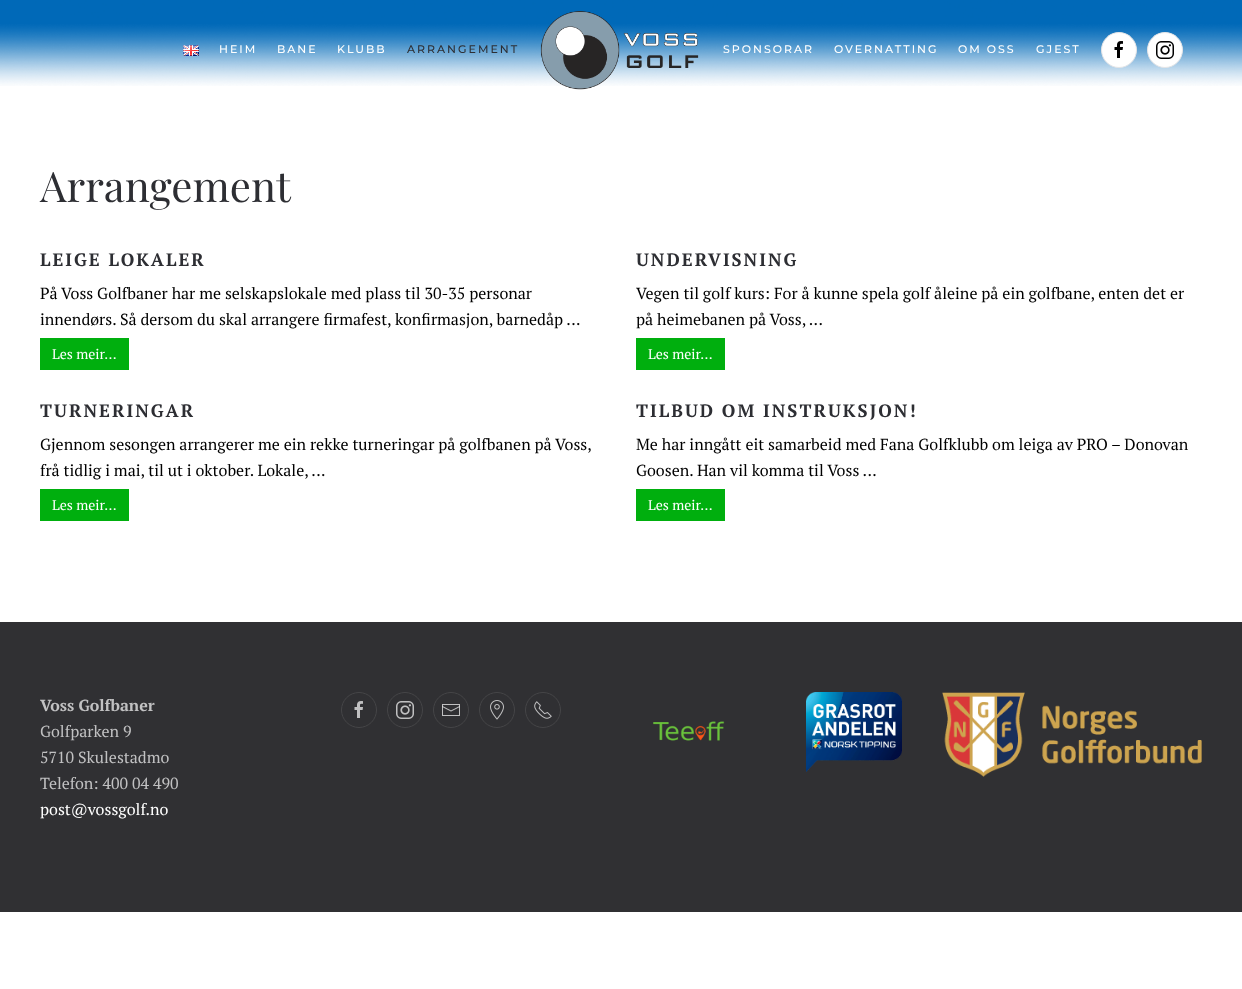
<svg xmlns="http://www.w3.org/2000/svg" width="1242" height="989">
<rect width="100%" height="100%" fill="#fff"/>
<image x="0" y="0" width="1242" height="86" href="media/1.png"/>
<image x="183" y="45" width="16" height="11" href="media/2.png"/>
<text x="219" y="53" style="font-family:Montserrat;font-size:11px;font-weight:100;letter-spacing:2px;fill:#fff">HEIM</text>
<text x="277" y="53" style="font-family:Montserrat;font-size:11px;font-weight:100;letter-spacing:2px;fill:#fff">BANE</text>
<text x="337" y="53" style="font-family:Montserrat;font-size:11px;font-weight:100;letter-spacing:2px;fill:#fff">KLUBB</text>
<text x="407" y="53" style="font-family:Montserrat;font-size:11px;font-weight:100;letter-spacing:2px;fill:#2d2e33">ARRANGEMENT</text>
<image x="540" y="11" width="159" height="79" href="media/3.png"/>
<text x="723" y="53" style="font-family:Montserrat;font-size:11px;font-weight:100;letter-spacing:2px;fill:#fff">SPONSORAR</text>
<text x="834" y="53" style="font-family:Montserrat;font-size:11px;font-weight:100;letter-spacing:2px;fill:#fff">OVERNATTING</text>
<text x="958" y="53" style="font-family:Montserrat;font-size:11px;font-weight:100;letter-spacing:2px;fill:#fff">OM OSS</text>
<text x="1036" y="53" style="font-family:Montserrat;font-size:11px;font-weight:100;letter-spacing:2px;fill:#fff">GJEST</text>
<circle cx="1119" cy="50" r="17.5" fill="#fff" stroke="#e5e5e7"/>
<image x="1114" y="41" width="9" height="17" href="media/4.png"/>
<circle cx="1165" cy="50" r="17.5" fill="#fff" stroke="#e5e5e7"/>
<image x="1156" y="41" width="18" height="18" href="media/5.png"/>
<text x="40" y="202" style="font-family:Playfair Display;font-size:42px;fill:#2d2e33">Arrangement</text>
<text x="40" y="266" style="font-family:PT Serif;font-size:18px;font-weight:bold;letter-spacing:2px;fill:#2d2e33">LEIGE LOKALER</text>
<text x="40" y="299" style="font-family:PT Serif;font-size:16px;fill:#000">På Voss Golfbaner har me selskapslokale med plass til 30-35 personar</text>
<text x="40" y="325" style="font-family:PT Serif;font-size:16px;fill:#000">innendørs. Så dersom du skal arrangere firmafest, konfirmasjon, barnedåp ...</text>
<rect x="40" y="338" width="89" height="32" fill="#00af0e"/>
<text x="52" y="359" style="font-family:PT Serif;font-size:14px;fill:#fff">Les meir…</text>
<text x="636" y="266" style="font-family:PT Serif;font-size:18px;font-weight:bold;letter-spacing:2px;fill:#2d2e33">UNDERVISNING</text>
<text x="636" y="299" style="font-family:PT Serif;font-size:16px;fill:#000">Vegen til golf kurs: For å kunne spela golf åleine på ein golfbane, enten det er</text>
<text x="636" y="325" style="font-family:PT Serif;font-size:16px;fill:#000">på heimebanen på Voss, ...</text>
<rect x="636" y="338" width="89" height="32" fill="#00af0e"/>
<text x="648" y="359" style="font-family:PT Serif;font-size:14px;fill:#fff">Les meir…</text>
<text x="40" y="417" style="font-family:PT Serif;font-size:18px;font-weight:bold;letter-spacing:2px;fill:#2d2e33">TURNERINGAR</text>
<text x="40" y="450" style="font-family:PT Serif;font-size:16px;fill:#000">Gjennom sesongen arrangerer me ein rekke turneringar på golfbanen på Voss,</text>
<text x="40" y="476" style="font-family:PT Serif;font-size:16px;fill:#000">frå tidlig i mai, til ut i oktober. Lokale, ...</text>
<rect x="40" y="489" width="89" height="32" fill="#00af0e"/>
<text x="52" y="510" style="font-family:PT Serif;font-size:14px;fill:#fff">Les meir…</text>
<text x="636" y="417" style="font-family:PT Serif;font-size:18px;font-weight:bold;letter-spacing:2px;fill:#2d2e33">TILBUD OM INSTRUKSJON!</text>
<text x="636" y="450" style="font-family:PT Serif;font-size:16px;fill:#000">Me har inngått eit samarbeid med Fana Golfklubb om leiga av PRO – Donovan</text>
<text x="636" y="476" style="font-family:PT Serif;font-size:16px;fill:#000">Goosen. Han vil komma til Voss ...</text>
<rect x="636" y="489" width="89" height="32" fill="#00af0e"/>
<text x="648" y="510" style="font-family:PT Serif;font-size:14px;fill:#fff">Les meir…</text>
<rect y="622" width="1242" height="290" fill="#303033"/>
<text x="40" y="711" style="font-family:PT Serif;font-size:16px;font-weight:bold;fill:#c1c1c2">Voss Golfbaner</text>
<text x="40" y="737" style="font-family:PT Serif;font-size:16px;fill:#c1c1c2">Golfparken 9</text>
<text x="40" y="763" style="font-family:PT Serif;font-size:16px;fill:#c1c1c2">5710 Skulestadmo</text>
<text x="40" y="789" style="font-family:PT Serif;font-size:16px;fill:#c1c1c2">Telefon: 400 04 490</text>
<text x="40" y="815" style="font-family:PT Serif;font-size:16px;fill:#fff">post@vossgolf.no</text>
<circle cx="359" cy="710" r="17.5" fill="none" stroke="#454547"/>
<image x="354" y="701" width="9" height="17" href="media/6.png"/>
<circle cx="405" cy="710" r="17.5" fill="none" stroke="#454547"/>
<image x="396" y="701" width="18" height="18" href="media/7.png"/>
<circle cx="451" cy="710" r="17.5" fill="none" stroke="#454547"/>
<image x="442" y="704" width="18" height="12" href="media/8.png"/>
<circle cx="497" cy="710" r="17.5" fill="none" stroke="#454547"/>
<image x="490" y="700" width="14" height="20" href="media/9.png"/>
<circle cx="543" cy="710" r="17.5" fill="none" stroke="#454547"/>
<image x="534" y="701" width="18" height="18" href="media/10.png"/>
<image x="653" y="721" width="72" height="20" href="media/11.png"/>
<image x="806" y="692" width="96" height="80" href="media/12.png"/>
<image x="942" y="692" width="260" height="85" href="media/13.png"/>
</svg>
